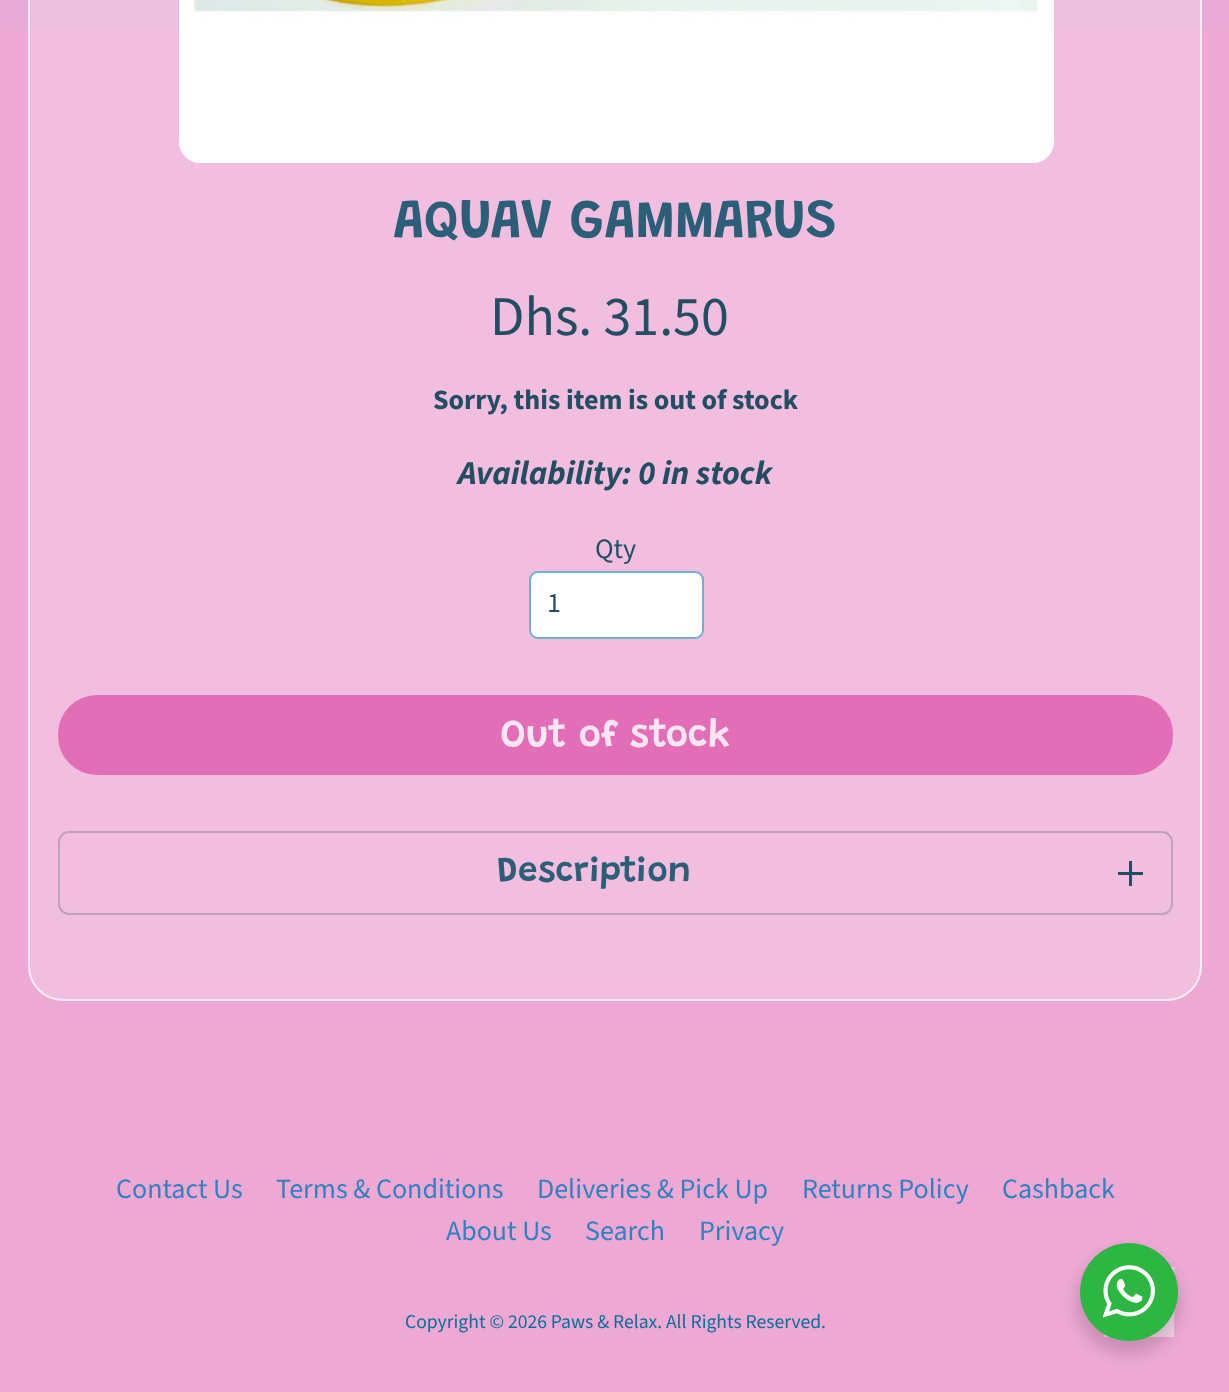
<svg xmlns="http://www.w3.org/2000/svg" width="1229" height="1392">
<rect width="100%" height="100%" fill="#eda8d4"/>
<image x="0" y="0" width="1229" height="31" href="media/1.png"/>
<rect x="28" y="-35" width="1174" height="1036" rx="35" fill="#ffffff40"/>
<rect x="29" y="-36" width="1172" height="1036" rx="34" fill="none" stroke="#ffffffb3" stroke-width="2"/>
<rect x="179" y="-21" width="875" height="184" rx="21" fill="#fff"/>
<image x="194" y="0" width="844" height="21" href="media/2.png"/>
<text x="393" y="237" style="font-family:Grandstander;font-size:54.75px;font-weight:600;fill:#2b5f77">AQUAV GAMMARUS</text>
<text x="490" y="335" style="font-family:Source Sans Pro;font-size:56px;fill:#234d61">Dhs. 31.50</text>
<text x="433" y="409" style="font-family:Source Sans Pro;font-size:28px;font-weight:bold;fill:#234d61">Sorry, this item is out of stock</text>
<text x="458" y="484" style="font-family:Source Sans Pro;font-size:33.5px;font-weight:bold;font-style:italic;fill:#234d61">Availability: 0 in stock</text>
<text x="595" y="558" style="font-family:Source Sans Pro;font-size:28px;fill:#234d61">Qty</text>
<rect x="530" y="572" width="173" height="66" rx="8" fill="#fff" stroke="#70b1cc" stroke-width="2"/>
<text x="547" y="612" style="font-family:Source Sans Pro;font-size:28px;fill:#234d61">1</text>
<rect x="58" y="695" width="1115" height="80" rx="39" fill="#e26eb7"/>
<text x="500" y="746" style="font-family:Grandstander;font-size:38.5px;font-weight:600;fill:#fae5f2">Out of stock</text>
<rect x="59" y="832" width="1113" height="82" rx="10" fill="none" stroke="#bea2bf" stroke-width="2"/>
<text x="497" y="881" style="font-family:Grandstander;font-size:35px;font-weight:600;fill:#2b5f77">Description</text>
<rect x="1129" y="861" width="3" height="25" fill="#234d61"/>
<rect x="1118" y="872" width="25" height="3" fill="#234d61"/>
<text x="116" y="1198" style="font-family:Source Sans Pro;font-size:28px;fill:#3180c0">Contact Us</text>
<text x="276" y="1198" style="font-family:Source Sans Pro;font-size:28px;fill:#3180c0">Terms &amp; Conditions</text>
<text x="537" y="1198" style="font-family:Source Sans Pro;font-size:28px;fill:#3180c0">Deliveries &amp; Pick Up</text>
<text x="802" y="1198" style="font-family:Source Sans Pro;font-size:28px;fill:#3180c0">Returns Policy</text>
<text x="1002" y="1198" style="font-family:Source Sans Pro;font-size:28px;fill:#3180c0">Cashback</text>
<text x="446" y="1240" style="font-family:Source Sans Pro;font-size:28px;fill:#3180c0">About Us</text>
<text x="585" y="1240" style="font-family:Source Sans Pro;font-size:28px;fill:#3180c0">Search</text>
<text x="699" y="1240" style="font-family:Source Sans Pro;font-size:28px;fill:#3180c0">Privacy</text>
<text x="405" y="1328" style="font-family:Source Sans Pro;font-size:19.6px;fill:#0a6e99">Copyright © 2026 Paws &amp; Relax. All Rights Reserved.</text>
<image x="1104" y="1267" width="71" height="70" href="media/3.png"/>
<rect x="1076" y="1250" width="105" height="105" rx="52.5" fill="#00000024" filter="blur(7px)"/>
<circle cx="1129" cy="1292" r="49" fill="#2db742"/>
<image x="1103" y="1265" width="52" height="53" href="media/4.png"/>
</svg>
